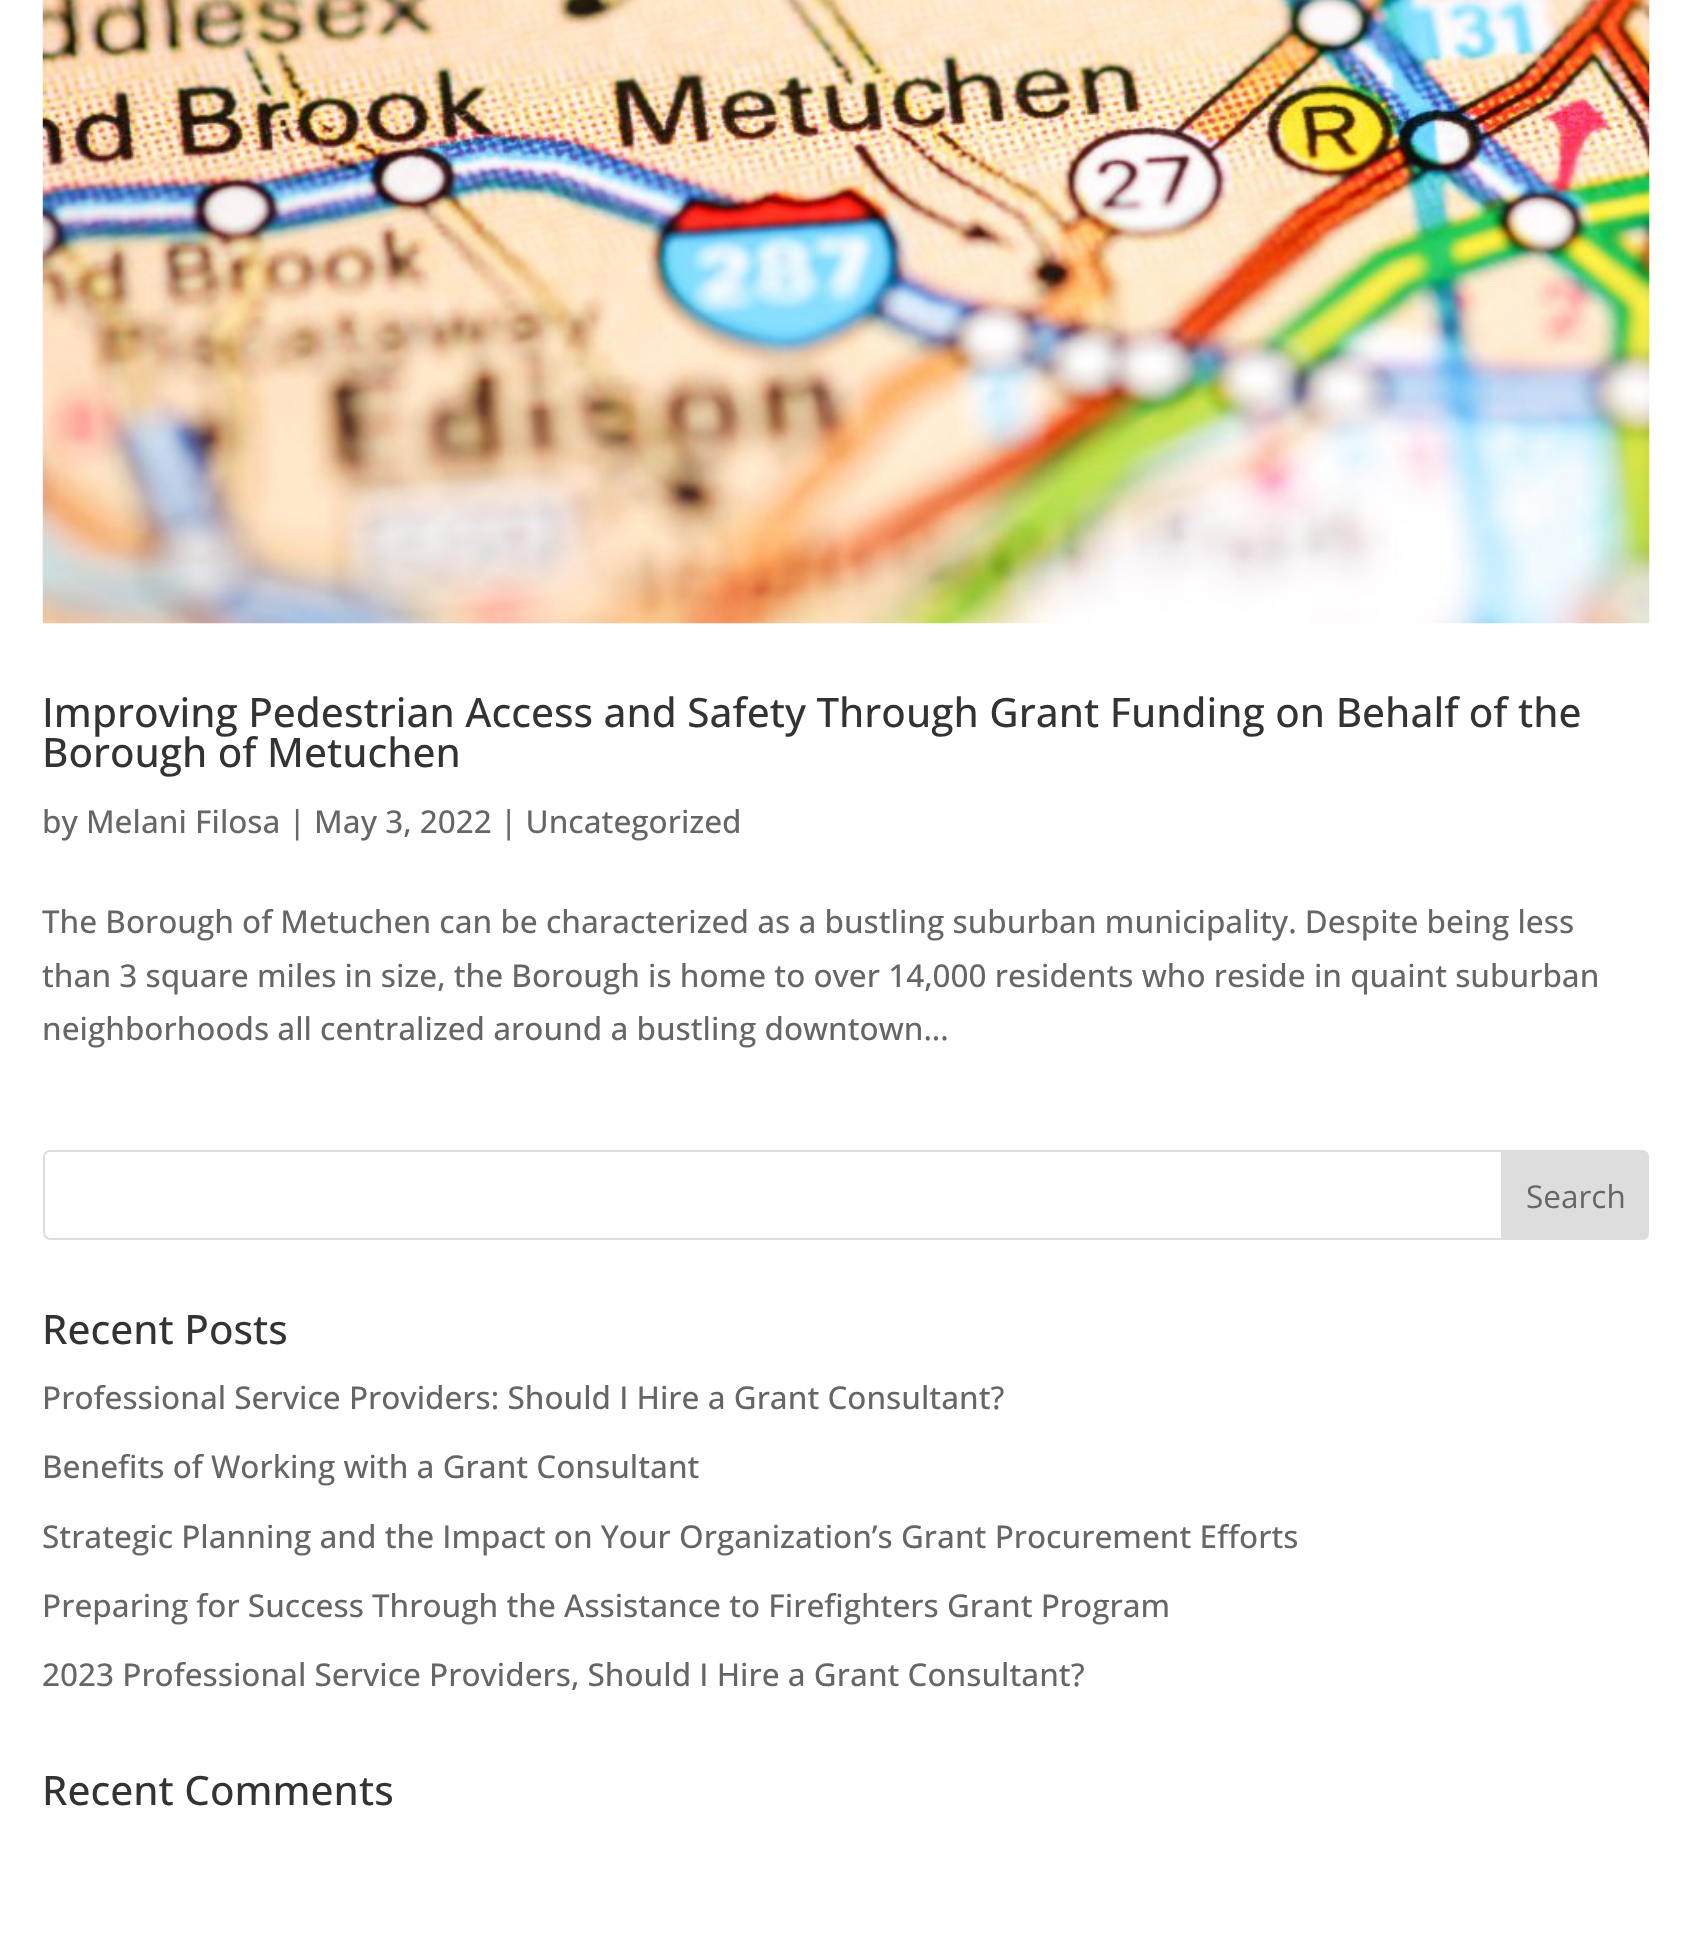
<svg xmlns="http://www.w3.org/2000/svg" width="1691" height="1960">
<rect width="100%" height="100%" fill="#fff"/>
<image x="42" y="0" width="1608" height="624" href="media/1.png"/>
<text x="42" y="727" style="font-family:Open Sans;font-size:40.5px;font-weight:500;fill:#333">Improving Pedestrian Access and Safety Through Grant Funding on Behalf of the</text>
<text x="42" y="767" style="font-family:Open Sans;font-size:40.5px;font-weight:500;fill:#333">Borough of Metuchen</text>
<text x="42" y="833" style="font-family:Open Sans;font-size:31.5px;font-weight:500;fill:#666">by Melani Filosa | May 3, 2022 | Uncategorized</text>
<text x="42" y="933" style="font-family:Open Sans;font-size:31.5px;font-weight:500;fill:#666">The Borough of Metuchen can be characterized as a bustling suburban municipality. Despite being less</text>
<text x="42" y="987" style="font-family:Open Sans;font-size:31.5px;font-weight:500;fill:#666">than 3 square miles in size, the Borough is home to over 14,000 residents who reside in quaint suburban</text>
<text x="42" y="1040" style="font-family:Open Sans;font-size:31.5px;font-weight:500;fill:#666">neighborhoods all centralized around a bustling downtown...</text>
<rect x="44" y="1151" width="1604" height="88" rx="6" fill="none" stroke="#ddd" stroke-width="2"/>
<path d="M1502 1151h140c3.5 0 6 2.5 6 6v76c0 3.5-2.5 6-6 6h-140z" fill="#ddd" stroke="#ddd" stroke-width="2"/>
<text x="1526" y="1208" style="font-family:Open Sans;font-size:31.5px;fill:#666">Search</text>
<text x="42" y="1344" style="font-family:Open Sans;font-size:40.5px;font-weight:500;fill:#333">Recent Posts</text>
<text x="42" y="1409" style="font-family:Open Sans;font-size:31.5px;font-weight:500;fill:#666">Professional Service Providers: Should I Hire a Grant Consultant?</text>
<text x="42" y="1478" style="font-family:Open Sans;font-size:31.5px;font-weight:500;fill:#666">Benefits of Working with a Grant Consultant</text>
<text x="42" y="1548" style="font-family:Open Sans;font-size:31.5px;font-weight:500;fill:#666">Strategic Planning and the Impact on Your Organization’s Grant Procurement Efforts</text>
<text x="42" y="1617" style="font-family:Open Sans;font-size:31.5px;font-weight:500;fill:#666">Preparing for Success Through the Assistance to Firefighters Grant Program</text>
<text x="42" y="1686" style="font-family:Open Sans;font-size:31.5px;font-weight:500;fill:#666">2023 Professional Service Providers, Should I Hire a Grant Consultant?</text>
<text x="42" y="1805" style="font-family:Open Sans;font-size:40.5px;font-weight:500;fill:#333">Recent Comments</text>
</svg>
